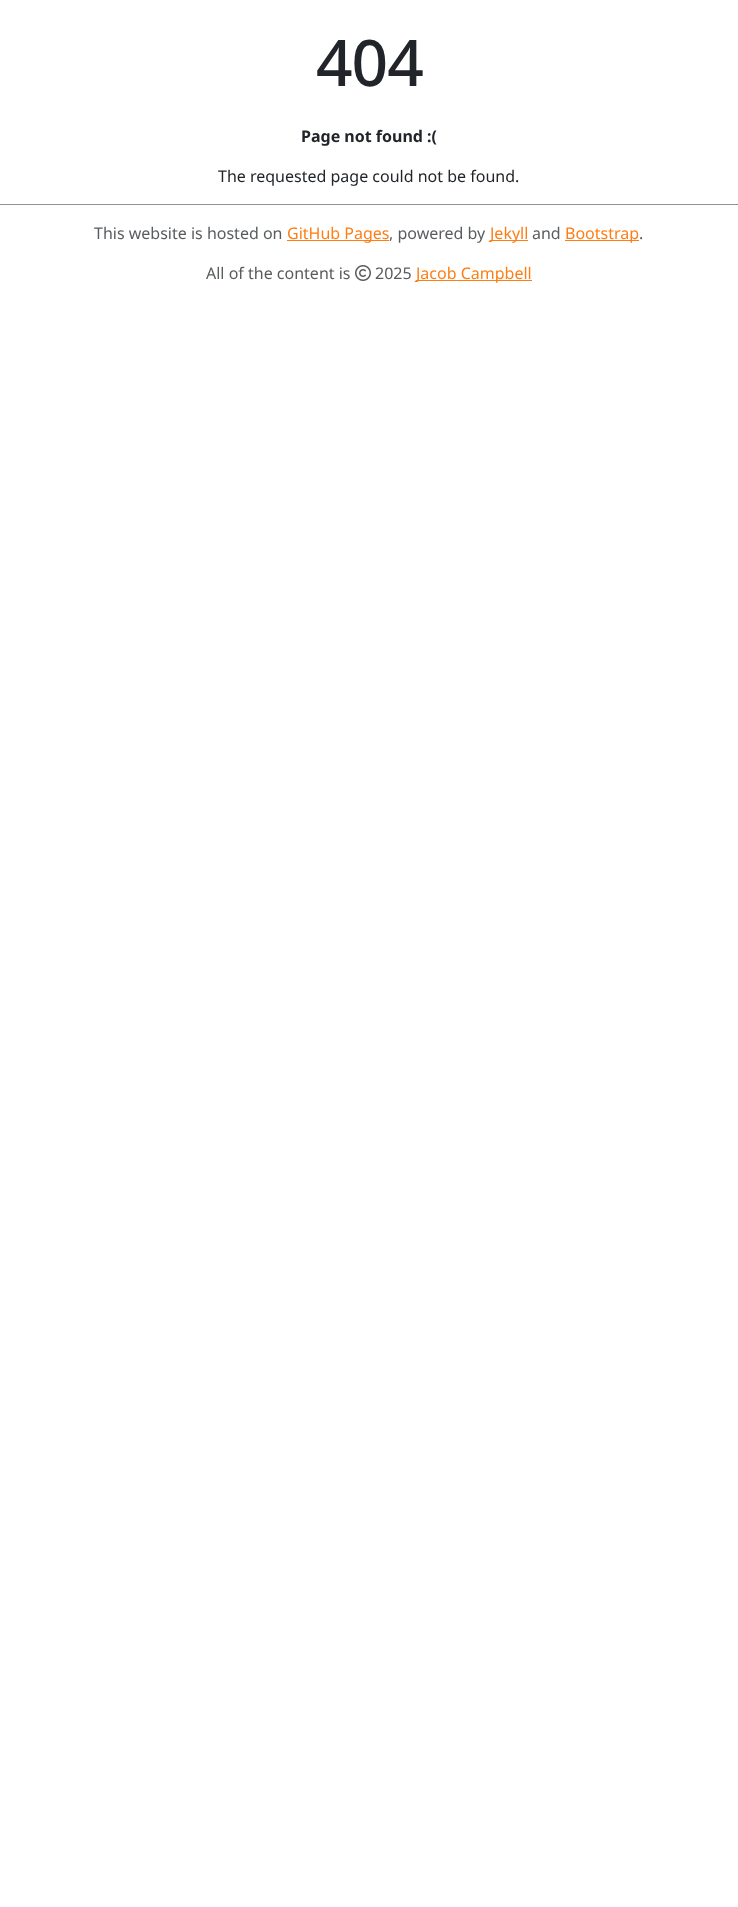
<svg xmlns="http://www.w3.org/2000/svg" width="738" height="1907">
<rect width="100%" height="100%" fill="#fff"/>
<text x="316" y="86" style="font-family:Noto Sans;font-size:64px;font-weight:500;letter-spacing:-1px;fill:#212529">404</text>
<text x="301" y="142" style="font-family:Noto Sans;font-size:16px;font-weight:bold;fill:#212529">Page not found :(</text>
<text x="218" y="182" style="font-family:Noto Sans;font-size:16px;fill:#212529">The requested page could not be found.</text>
<rect y="204" width="738" height="1" fill="#909294"/>
<text x="94" y="239" style="font-family:Noto Sans;font-size:16px;fill:#595c5f">This website is hosted on</text>
<rect x="287" y="240" width="102" height="1" fill="#fd7e14"/>
<text x="287" y="239" style="font-family:Noto Sans;font-size:16px;fill:#fd7e14">GitHub Pages</text>
<text x="389" y="239" style="font-family:Noto Sans;font-size:16px;fill:#595c5f">, powered by</text>
<rect x="490" y="240" width="38" height="1" fill="#fd7e14"/>
<text x="490" y="239" style="font-family:Noto Sans;font-size:16px;fill:#fd7e14">Jekyll</text>
<text x="532" y="239" style="font-family:Noto Sans;font-size:16px;fill:#595c5f">and</text>
<rect x="565" y="240" width="74" height="1" fill="#fd7e14"/>
<text x="565" y="239" style="font-family:Noto Sans;font-size:16px;fill:#fd7e14">Bootstrap</text>
<text x="639" y="239" style="font-family:Noto Sans;font-size:16px;fill:#595c5f">.</text>
<text x="206" y="279" style="font-family:Noto Sans;font-size:16px;fill:#595c5f">All of the content is</text>
<image x="355" y="265" width="16" height="16" href="media/1.png"/>
<text x="375" y="279" style="font-family:Noto Sans;font-size:16px;fill:#595c5f">2025</text>
<rect x="416" y="280" width="116" height="1" fill="#fd7e14"/>
<text x="416" y="279" style="font-family:Noto Sans;font-size:16px;fill:#fd7e14">Jacob Campbell</text>
</svg>
